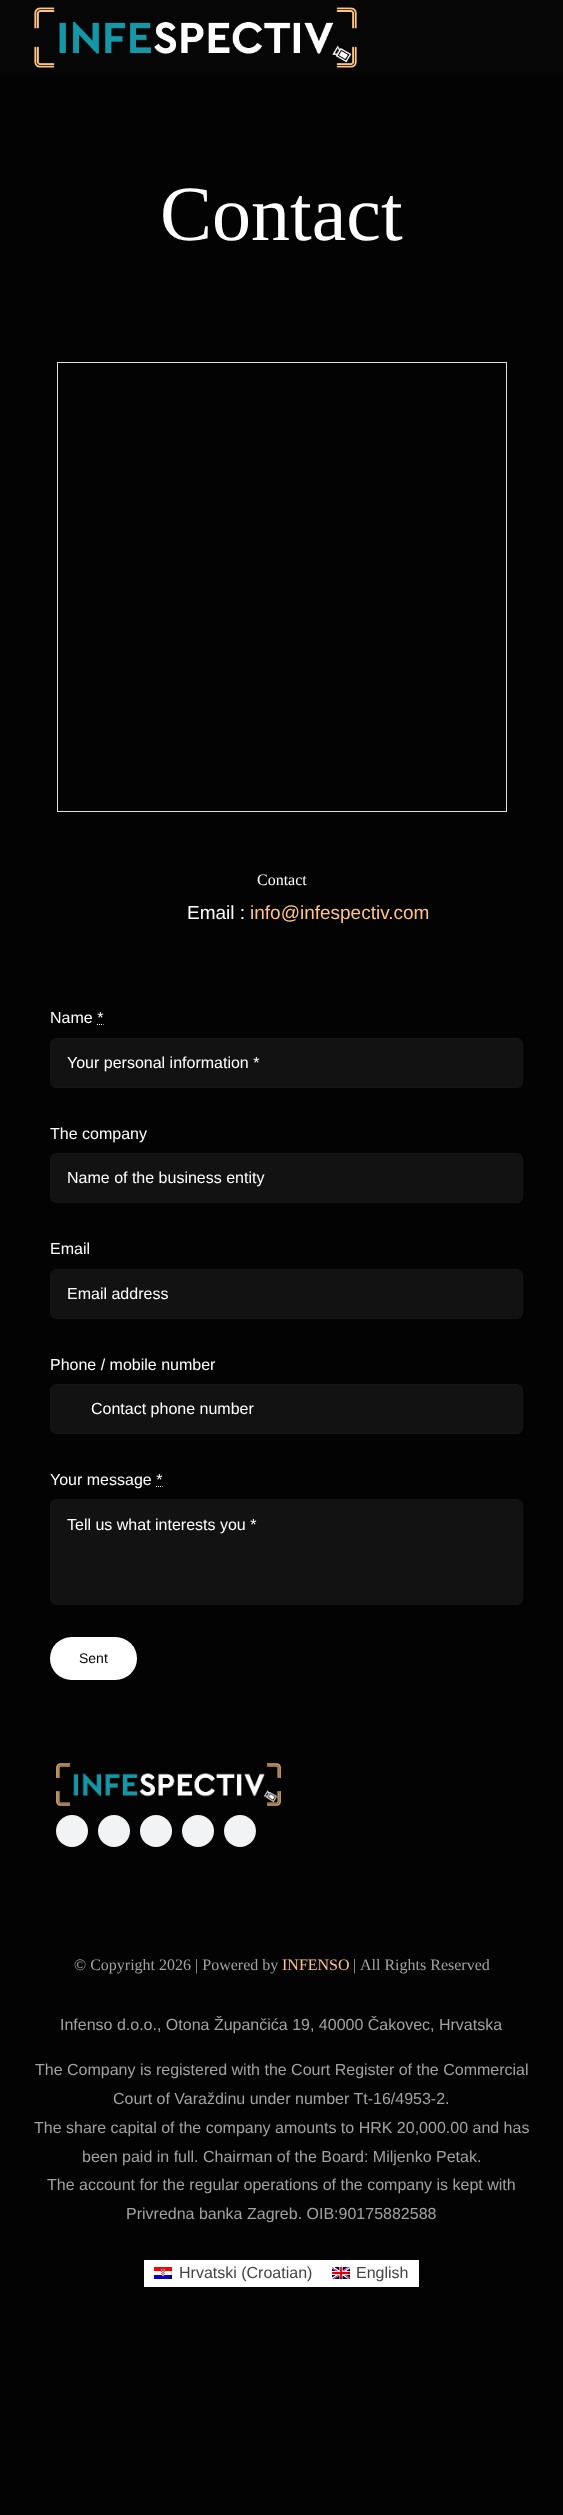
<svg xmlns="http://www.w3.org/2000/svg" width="563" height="2515">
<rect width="100%" height="100%" fill="#030303"/>
<rect width="563" height="75" fill="#060607"/>
<image x="34" y="7" width="323" height="61" href="media/1.png"/>
<text x="160" y="240" style="font-family:Liberation Serif;font-size:78px;fill:#fff">Contact</text>
<rect x="57.5" y="362.5" width="449" height="449" fill="none" stroke="#e2e2e2"/>
<text x="257" y="885" style="font-family:Liberation Serif;font-size:16px;fill:#fff">Contact</text>
<text x="187" y="919" style="font-family:Liberation Sans;font-size:19px;fill:#fff">Email :</text>
<text x="250" y="919" style="font-family:Liberation Sans;font-size:19px;fill:#ffc482">info@infespectiv.com</text>
<text x="50" y="1023" style="font-family:Liberation Sans;font-size:16px;fill:#fff">Name *</text>
<path d="M97 1024.5h1m1 0h1m1 0h1m1 0h.5" fill="none" stroke="#fff"/>
<rect x="50.5" y="1038.5" width="472" height="49" rx="5.5" fill="#121212" stroke="#151515"/>
<text x="67" y="1068" style="font-family:Liberation Sans;font-size:16px;fill:#fff">Your personal information *</text>
<text x="50" y="1139" style="font-family:Liberation Sans;font-size:16px;fill:#fff">The company</text>
<rect x="50.5" y="1153.5" width="472" height="49" rx="5.5" fill="#121212" stroke="#151515"/>
<text x="67" y="1183" style="font-family:Liberation Sans;font-size:16px;fill:#fff">Name of the business entity</text>
<text x="50" y="1254" style="font-family:Liberation Sans;font-size:16px;fill:#fff">Email</text>
<rect x="50.5" y="1269.5" width="472" height="49" rx="5.5" fill="#121212" stroke="#151515"/>
<text x="67" y="1299" style="font-family:Liberation Sans;font-size:16px;fill:#fff">Email address</text>
<text x="50" y="1370" style="font-family:Liberation Sans;font-size:16px;fill:#fff">Phone / mobile number</text>
<rect x="50.5" y="1384.5" width="472" height="49" rx="5.5" fill="#121212" stroke="#151515"/>
<text x="91" y="1414" style="font-family:Liberation Sans;font-size:16px;fill:#fff">Contact phone number</text>
<text x="50" y="1485" style="font-family:Liberation Sans;font-size:16px;fill:#fff">Your message *</text>
<path d="M156 1486.5h1m1 0h1m1 0h1m1 0h.5" fill="none" stroke="#fff"/>
<rect x="50.5" y="1499.5" width="472" height="105" rx="5.5" fill="#121212" stroke="#151515"/>
<text x="67" y="1530" style="font-family:Liberation Sans;font-size:16px;fill:#fff">Tell us what interests you *</text>
<rect x="50" y="1637" width="87" height="43" rx="21.5" fill="#fff"/>
<text x="79" y="1663" style="font-family:Liberation Sans;font-size:14px;fill:#000">Sent</text>
<image x="56" y="1763" width="225" height="43" href="media/2.png"/>
<circle cx="72" cy="1831" r="16" fill="#f2f3f5"/>
<circle cx="114" cy="1831" r="16" fill="#f2f3f5"/>
<circle cx="156" cy="1831" r="16" fill="#f2f3f5"/>
<circle cx="198" cy="1831" r="16" fill="#f2f3f5"/>
<circle cx="240" cy="1831" r="16" fill="#f2f3f5"/>
<text x="74" y="1970" style="font-family:Liberation Serif;font-size:16px;fill:#a2a2a2">© Copyright 2026 | Powered by</text>
<text x="282" y="1970" style="font-family:Liberation Serif;font-size:16px;fill:#ffc482">INFENSO</text>
<text x="353" y="1970" style="font-family:Liberation Serif;font-size:16px;fill:#a2a2a2">|</text>
<text x="360" y="1970" style="font-family:Liberation Serif;font-size:16px;fill:#a2a2a2">All Rights Reserved</text>
<text x="60" y="2030" style="font-family:Liberation Sans;font-size:16px;fill:#a2a2a2">Infenso d.o.o., Otona Župančića 19, 40000 Čakovec, Hrvatska</text>
<text x="35" y="2075" style="font-family:Liberation Sans;font-size:16px;fill:#a2a2a2">The Company is registered with the Court Register of the Commercial</text>
<text x="113" y="2104" style="font-family:Liberation Sans;font-size:16px;fill:#a2a2a2">Court of Varaždinu under number Tt-16/4953-2.</text>
<text x="34" y="2133" style="font-family:Liberation Sans;font-size:16px;fill:#a2a2a2">The share capital of the company amounts to HRK 20,000.00 and has</text>
<text x="82" y="2162" style="font-family:Liberation Sans;font-size:16px;fill:#a2a2a2">been paid in full. Chairman of the Board: Miljenko Petak.</text>
<text x="47" y="2190" style="font-family:Liberation Sans;font-size:16px;fill:#a2a2a2">The account for the regular operations of the company is kept with</text>
<text x="126" y="2219" style="font-family:Liberation Sans;font-size:16px;fill:#a2a2a2">Privredna banka Zagreb. OIB:90175882588</text>
<rect x="144" y="2260" width="275" height="27" fill="#fff"/>
<image x="154" y="2267" width="18" height="12" href="media/3.png"/>
<text x="179" y="2278" style="font-family:Liberation Sans;font-size:16px;fill:#444">Hrvatski (Croatian)</text>
<image x="332" y="2267" width="18" height="12" href="media/4.png"/>
<text x="356" y="2278" style="font-family:Liberation Sans;font-size:16px;fill:#444">English</text>
</svg>
